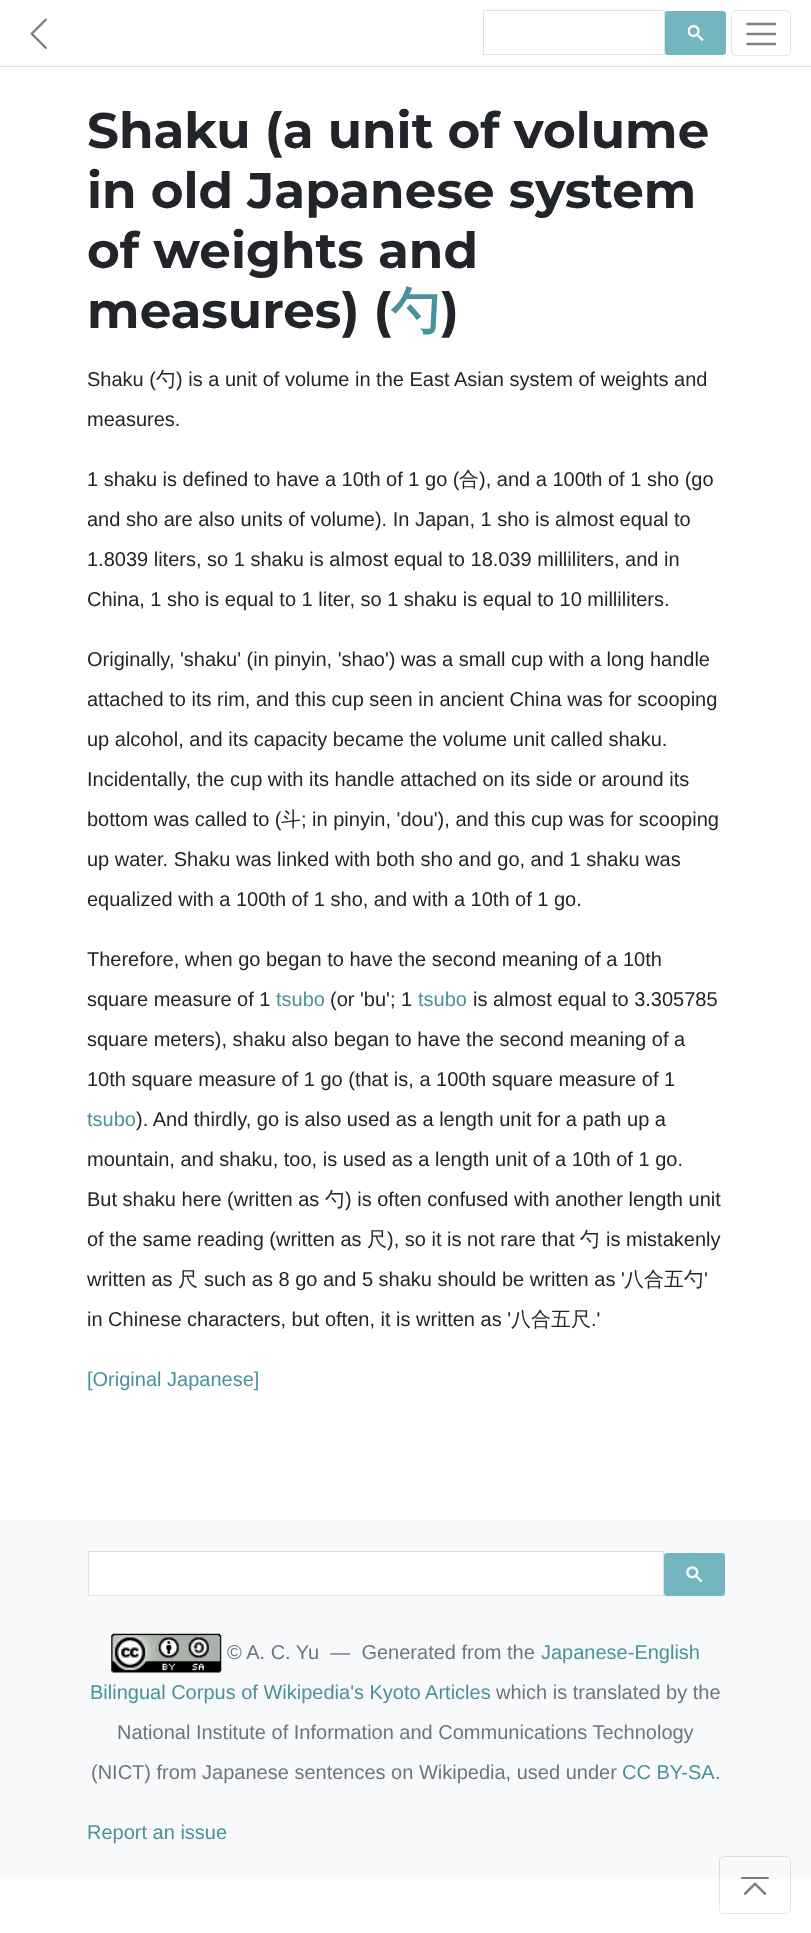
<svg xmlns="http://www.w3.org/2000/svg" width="811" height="1933">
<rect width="100%" height="100%" fill="#fff"/>
<rect y="66" width="811" height="1" fill="#dee2e6"/>
<image x="30" y="18" width="17" height="31" href="media/1.png"/>
<rect x="483.5" y="10.5" width="181" height="44" fill="none" stroke="#dfe1e5"/>
<rect x="665.5" y="11.5" width="60" height="43" rx="2" fill="#73b6bf" stroke="#73b6bf"/>
<image x="688" y="25" width="16" height="16" href="media/2.png"/>
<rect x="731.5" y="10.5" width="59" height="45" rx="4.5" fill="none" stroke="#e6e6e6"/>
<path d="M747.5 24h27.5m-27.5 10h27.5m-27.5 10h27.5" fill="none" stroke="#808080" stroke-width="2.5" stroke-linecap="round"/>
<text x="87" y="148" style="font-family:Montserrat;font-size:50px;font-weight:bold;fill:#212529">Shaku (a unit of volume</text>
<text x="87" y="208" style="font-family:Montserrat;font-size:50px;font-weight:bold;fill:#212529">in old Japanese system</text>
<text x="87" y="268" style="font-family:Montserrat;font-size:50px;font-weight:bold;fill:#212529">of weights and</text>
<text x="87" y="328" style="font-family:Montserrat;font-size:50px;font-weight:bold;fill:#212529">measures) (</text>
<text x="391" y="328" style="font-family:WenQuanYi Zen Hei;font-size:50px;font-weight:bold;fill:#48929b">勺</text>
<text x="441" y="328" style="font-family:Montserrat;font-size:50px;font-weight:bold;fill:#212529">)</text>
<text x="87" y="386" style="font-family:Liberation Sans;font-size:20px;fill:#212529">Shaku (</text>
<text x="156" y="386" style="font-family:WenQuanYi Zen Hei;font-size:20px;font-weight:500;fill:#212529">勺</text>
<text x="176" y="386" style="font-family:Liberation Sans;font-size:20px;fill:#212529">) is a unit of volume in the East Asian system of weights and</text>
<text x="87" y="426" style="font-family:Liberation Sans;font-size:20px;fill:#212529">measures.</text>
<text x="87" y="486" style="font-family:Liberation Sans;font-size:20px;fill:#212529">1 shaku is defined to have a 10th of 1 go (</text>
<text x="459" y="486" style="font-family:WenQuanYi Zen Hei;font-size:20px;font-weight:500;fill:#212529">合</text>
<text x="479" y="486" style="font-family:Liberation Sans;font-size:20px;fill:#212529">), and a 100th of 1 sho (go</text>
<text x="87" y="526" style="font-family:Liberation Sans;font-size:20px;fill:#212529">and sho are also units of volume). In Japan, 1 sho is almost equal to</text>
<text x="87" y="566" style="font-family:Liberation Sans;font-size:20px;fill:#212529">1.8039 liters, so 1 shaku is almost equal to 18.039 milliliters, and in</text>
<text x="87" y="606" style="font-family:Liberation Sans;font-size:20px;fill:#212529">China, 1 sho is equal to 1 liter, so 1 shaku is equal to 10 milliliters.</text>
<text x="87" y="666" style="font-family:Liberation Sans;font-size:20px;fill:#212529">Originally, 'shaku' (in pinyin, 'shao') was a small cup with a long handle</text>
<text x="87" y="706" style="font-family:Liberation Sans;font-size:20px;fill:#212529">attached to its rim, and this cup seen in ancient China was for scooping</text>
<text x="87" y="746" style="font-family:Liberation Sans;font-size:20px;fill:#212529">up alcohol, and its capacity became the volume unit called shaku.</text>
<text x="87" y="786" style="font-family:Liberation Sans;font-size:20px;fill:#212529">Incidentally, the cup with its handle attached on its side or around its</text>
<text x="87" y="826" style="font-family:Liberation Sans;font-size:20px;fill:#212529">bottom was called to (</text>
<text x="281" y="826" style="font-family:WenQuanYi Zen Hei;font-size:20px;font-weight:500;fill:#212529">斗</text>
<text x="301" y="826" style="font-family:Liberation Sans;font-size:20px;fill:#212529">; in pinyin, 'dou'), and this cup was for scooping</text>
<text x="87" y="866" style="font-family:Liberation Sans;font-size:20px;fill:#212529">up water. Shaku was linked with both sho and go, and 1 shaku was</text>
<text x="87" y="906" style="font-family:Liberation Sans;font-size:20px;fill:#212529">equalized with a 100th of 1 sho, and with a 10th of 1 go.</text>
<text x="87" y="966" style="font-family:Liberation Sans;font-size:20px;fill:#212529">Therefore, when go began to have the second meaning of a 10th</text>
<text x="87" y="1006" style="font-family:Liberation Sans;font-size:20px;fill:#212529">square measure of 1</text>
<text x="276" y="1006" style="font-family:Liberation Sans;font-size:20px;fill:#48929b">tsubo</text>
<text x="330" y="1006" style="font-family:Liberation Sans;font-size:20px;fill:#212529">(or 'bu'; 1</text>
<text x="418" y="1006" style="font-family:Liberation Sans;font-size:20px;fill:#48929b">tsubo</text>
<text x="473" y="1006" style="font-family:Liberation Sans;font-size:20px;fill:#212529">is almost equal to 3.305785</text>
<text x="87" y="1046" style="font-family:Liberation Sans;font-size:20px;fill:#212529">square meters), shaku also began to have the second meaning of a</text>
<text x="87" y="1086" style="font-family:Liberation Sans;font-size:20px;fill:#212529">10th square measure of 1 go (that is, a 100th square measure of 1</text>
<text x="87" y="1126" style="font-family:Liberation Sans;font-size:20px;fill:#48929b">tsubo</text>
<text x="136" y="1126" style="font-family:Liberation Sans;font-size:20px;fill:#212529">). And thirdly, go is also used as a length unit for a path up a</text>
<text x="87" y="1166" style="font-family:Liberation Sans;font-size:20px;fill:#212529">mountain, and shaku, too, is used as a length unit of a 10th of 1 go.</text>
<text x="87" y="1206" style="font-family:Liberation Sans;font-size:20px;fill:#212529">But shaku here (written as</text>
<text x="325" y="1206" style="font-family:WenQuanYi Zen Hei;font-size:20px;font-weight:500;fill:#212529">勺</text>
<text x="345" y="1206" style="font-family:Liberation Sans;font-size:20px;fill:#212529">) is often confused with another length unit</text>
<text x="87" y="1246" style="font-family:Liberation Sans;font-size:20px;fill:#212529">of the same reading (written as</text>
<text x="367" y="1246" style="font-family:WenQuanYi Zen Hei;font-size:20px;font-weight:500;fill:#212529">尺</text>
<text x="387" y="1246" style="font-family:Liberation Sans;font-size:20px;fill:#212529">), so it is not rare that</text>
<text x="580" y="1246" style="font-family:WenQuanYi Zen Hei;font-size:20px;font-weight:500;fill:#212529">勺</text>
<text x="606" y="1246" style="font-family:Liberation Sans;font-size:20px;fill:#212529">is mistakenly</text>
<text x="87" y="1286" style="font-family:Liberation Sans;font-size:20px;fill:#212529">written as</text>
<text x="178" y="1286" style="font-family:WenQuanYi Zen Hei;font-size:20px;font-weight:500;fill:#212529">尺</text>
<text x="204" y="1286" style="font-family:Liberation Sans;font-size:20px;fill:#212529">such as 8 go and 5 shaku should be written as '</text>
<text x="624" y="1286" style="font-family:WenQuanYi Zen Hei;font-size:20px;font-weight:500;fill:#212529">八合五勺</text>
<text x="704" y="1286" style="font-family:Liberation Sans;font-size:20px;fill:#212529">'</text>
<text x="87" y="1326" style="font-family:Liberation Sans;font-size:20px;fill:#212529">in Chinese characters, but often, it is written as '</text>
<text x="511" y="1326" style="font-family:WenQuanYi Zen Hei;font-size:20px;font-weight:500;fill:#212529">八合五尺</text>
<text x="591" y="1326" style="font-family:Liberation Sans;font-size:20px;fill:#212529">.'</text>
<text x="87" y="1386" style="font-family:Liberation Sans;font-size:20px;fill:#48929b">[Original Japanese]</text>
<rect y="1520" width="811" height="359" fill="#f8f9fa"/>
<rect x="88.5" y="1551.5" width="575" height="44" fill="#fff" stroke="#dfe1e5"/>
<rect x="664.5" y="1553.5" width="60" height="42" rx="2" fill="#73b6bf" stroke="#73b6bf"/>
<image x="686" y="1566" width="17" height="17" href="media/3.png"/>
<image x="111" y="1633" width="111" height="40" href="media/4.png"/>
<text x="227" y="1659" style="font-family:Liberation Sans;font-size:20px;fill:#6c757d" xml:space="preserve">© A. C. Yu  —  Generated from the</text>
<text x="541" y="1659" style="font-family:Liberation Sans;font-size:20px;fill:#48929b">Japanese-English</text>
<text x="90" y="1699" style="font-family:Liberation Sans;font-size:20px;fill:#48929b">Bilingual Corpus of Wikipedia's Kyoto Articles</text>
<text x="496" y="1699" style="font-family:Liberation Sans;font-size:20px;fill:#6c757d">which is translated by the</text>
<text x="117" y="1739" style="font-family:Liberation Sans;font-size:20px;fill:#6c757d">National Institute of Information and Communications Technology</text>
<text x="91" y="1779" style="font-family:Liberation Sans;font-size:20px;fill:#6c757d">(NICT) from Japanese sentences on Wikipedia, used under</text>
<text x="622" y="1779" style="font-family:Liberation Sans;font-size:20px;fill:#48929b">CC BY-SA</text>
<text x="715" y="1779" style="font-family:Liberation Sans;font-size:20px;fill:#6c757d">.</text>
<text x="87" y="1839" style="font-family:Liberation Sans;font-size:20px;fill:#48929b">Report an issue</text>
<rect x="719.5" y="1856.5" width="71" height="57" rx="4.5" fill="none" stroke="#0000001a"/>
<image x="741" y="1877" width="28" height="18" href="media/5.png"/>
</svg>
